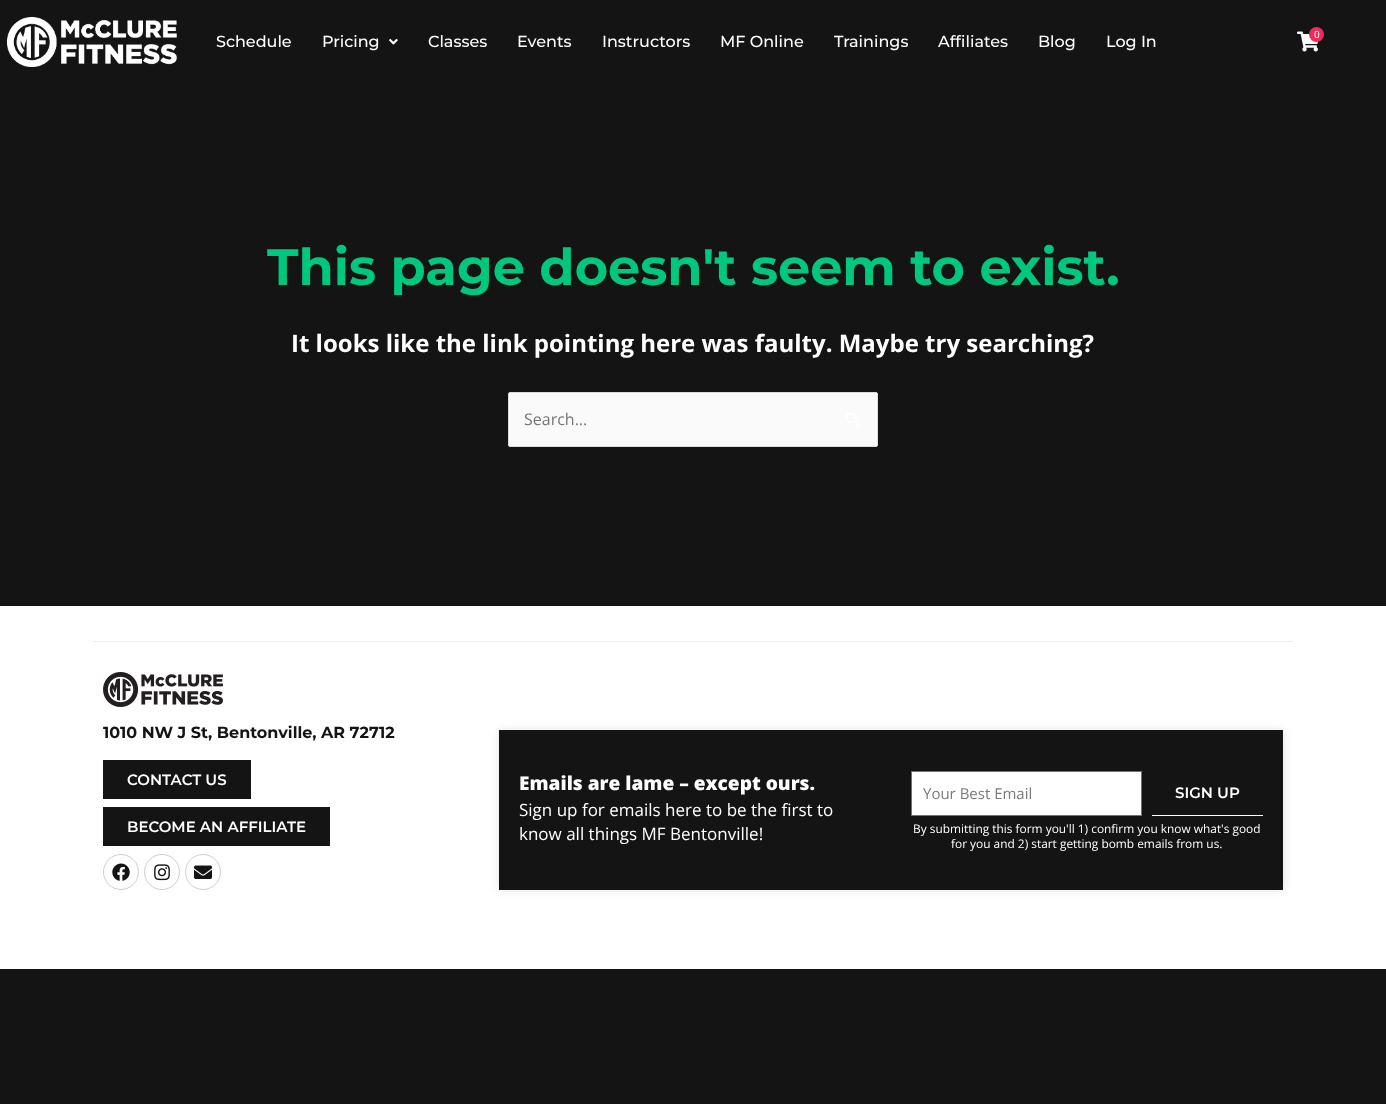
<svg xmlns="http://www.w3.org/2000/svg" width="1386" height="1104">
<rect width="100%" height="100%" fill="#141414"/>
<image x="7" y="17" width="170" height="50" href="media/1.png"/>
<text x="216" y="47" style="font-family:Montserrat;font-size:16px;font-weight:500;fill:#fff">Schedule</text>
<text x="322" y="47" style="font-family:Montserrat;font-size:16px;font-weight:500;fill:#fff">Pricing</text>
<image x="389" y="39" width="9" height="6" href="media/2.png"/>
<text x="428" y="47" style="font-family:Montserrat;font-size:16px;font-weight:500;fill:#fff">Classes</text>
<text x="517" y="47" style="font-family:Montserrat;font-size:16px;font-weight:500;fill:#fff">Events</text>
<text x="602" y="47" style="font-family:Montserrat;font-size:16px;font-weight:500;fill:#fff">Instructors</text>
<text x="720" y="47" style="font-family:Montserrat;font-size:16px;font-weight:500;fill:#fff">MF Online</text>
<text x="834" y="47" style="font-family:Montserrat;font-size:16px;font-weight:500;fill:#fff">Trainings</text>
<text x="938" y="47" style="font-family:Montserrat;font-size:16px;font-weight:500;fill:#fff">Affiliates</text>
<text x="1038" y="47" style="font-family:Montserrat;font-size:16px;font-weight:500;fill:#fff">Blog</text>
<text x="1106" y="47" style="font-family:Montserrat;font-size:16px;font-weight:500;fill:#fff">Log In</text>
<image x="1297" y="31" width="22" height="21" href="media/3.png"/>
<circle cx="1316.5" cy="34.5" r="7.5" fill="#f2295b"/>
<text x="1314" y="38" style="font-family:Open Sans;font-size:10px;fill:#fff">0</text>
<text x="267" y="285" style="font-family:Montserrat;font-size:51px;font-weight:bold;fill:#00c77e">This page doesn't seem to exist.</text>
<text x="291" y="352" style="font-family:Open Sans;font-size:24px;font-weight:bold;fill:#fff">It looks like the link pointing here was faulty. Maybe try searching?</text>
<rect x="508.5" y="392.5" width="369" height="54" rx="1.5" fill="#fafafa" stroke="#ddd"/>
<text x="524" y="425" style="font-family:Open Sans;font-size:16px;fill:#757575">Search...</text>
<image x="846" y="413" width="14" height="14" href="media/4.png"/>
<rect y="606" width="1386" height="363" fill="#fff"/>
<rect x="93" y="641" width="1200" height="1" fill="#eee"/>
<image x="103" y="672" width="120" height="35" href="media/5.png"/>
<text x="103" y="738" style="font-family:Montserrat;font-size:16px;font-weight:bold;fill:#141414">1010 NW J St, Bentonville, AR 72712</text>
<rect x="103" y="760" width="148" height="39" fill="#141414"/>
<text x="127" y="785" style="font-family:Montserrat;font-size:15px;font-weight:600;fill:#fff">CONTACT US</text>
<rect x="103" y="807" width="227" height="39" fill="#141414"/>
<text x="127" y="832" style="font-family:Montserrat;font-size:15px;font-weight:600;fill:#fff">BECOME AN AFFILIATE</text>
<circle cx="121" cy="872" r="17.5" fill="none" stroke="#cecece"/>
<image x="112" y="863" width="18" height="18" href="media/6.png"/>
<circle cx="162" cy="872" r="17.5" fill="none" stroke="#cecece"/>
<image x="154" y="864" width="16" height="17" href="media/7.png"/>
<circle cx="203" cy="872" r="17.5" fill="none" stroke="#cecece"/>
<image x="194" y="865" width="18" height="14" href="media/8.png"/>
<rect x="499" y="730" width="784" height="160" fill="#0000001a" filter="blur(5px)"/>
<rect x="499" y="730" width="784" height="160" fill="#141414"/>
<text x="519" y="790" style="font-family:Open Sans;font-size:19.1px;font-weight:800;fill:#fff">Emails are lame – except ours.</text>
<text x="519" y="816" style="font-family:Open Sans;font-size:17px;fill:#fff">Sign up for emails here to be the first to</text>
<text x="519" y="840" style="font-family:Open Sans;font-size:17px;fill:#fff">know all things MF Bentonville!</text>
<rect x="911.5" y="771.5" width="230" height="44" fill="#fff" stroke="#69727d"/>
<text x="923" y="799" style="font-family:Open Sans;font-size:15px;fill:#797a7c">Your Best Email</text>
<rect x="1152" y="815" width="111" height="1" fill="#fff"/>
<text x="1175" y="798" style="font-family:Montserrat;font-size:15px;font-weight:600;fill:#fff">SIGN UP</text>
<text x="913" y="833" style="font-family:Open Sans;font-size:11.9px;fill:#fff">By submitting this form you'll 1) confirm you know what's good</text>
<text x="951" y="848" style="font-family:Open Sans;font-size:11.9px;fill:#fff">for you and 2) start getting bomb emails from us.</text>
</svg>
